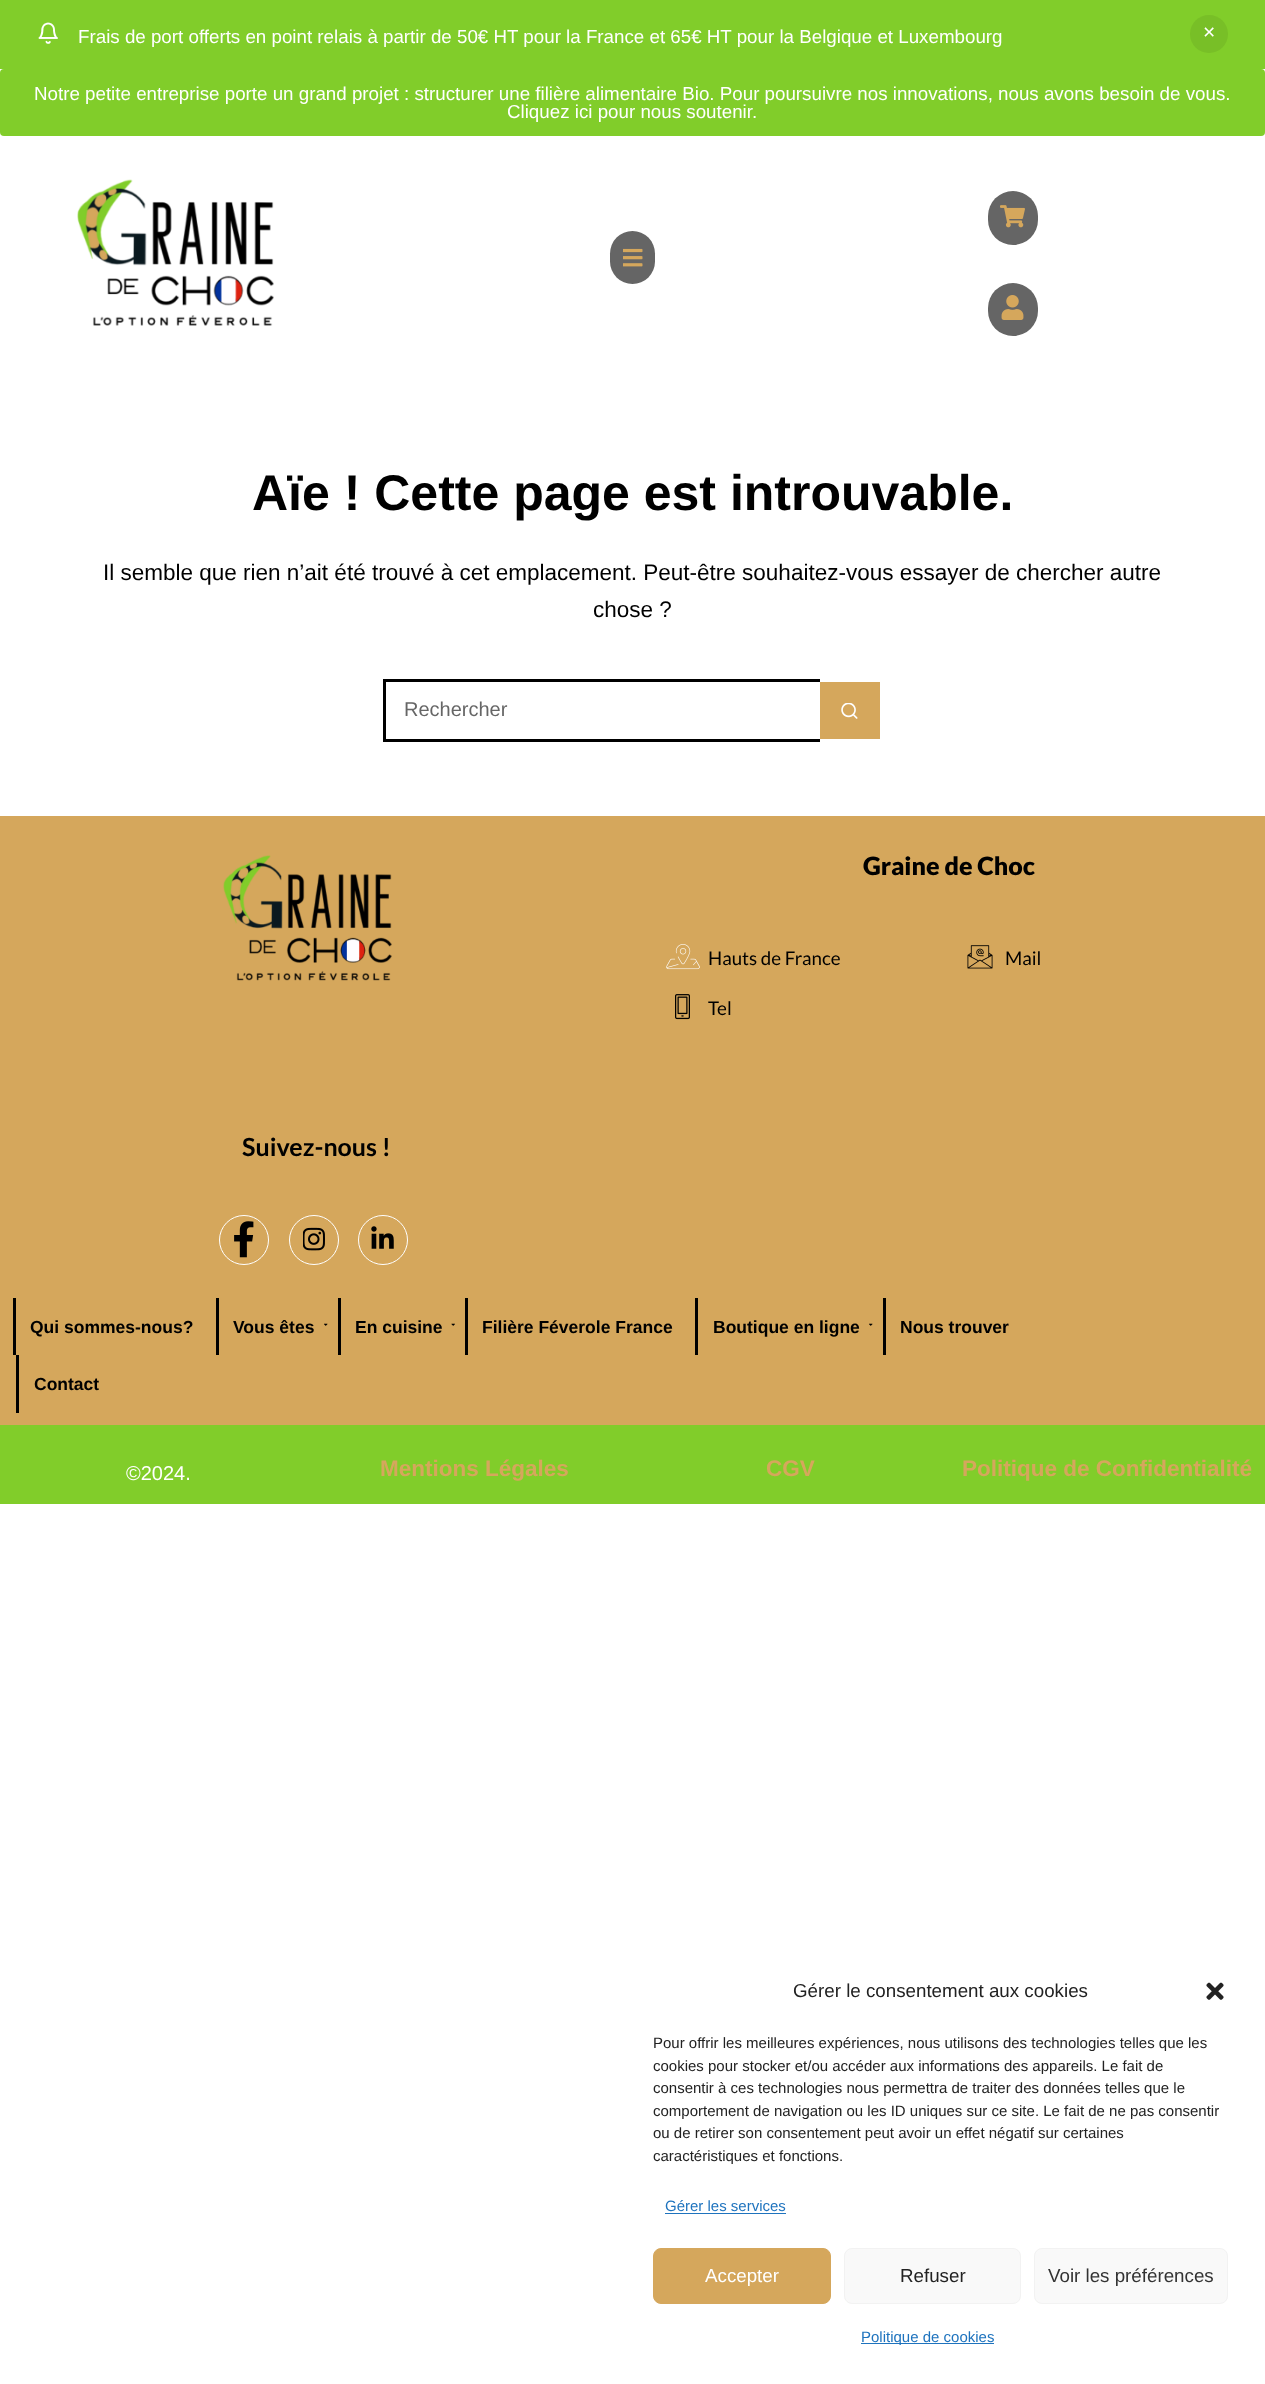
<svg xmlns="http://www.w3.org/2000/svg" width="1265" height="2384">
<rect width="100%" height="100%" fill="#fff"/>
<rect width="1265" height="69" fill="#81cd2a"/>
<image x="38" y="22" width="20" height="22" href="media/1.png"/>
<text x="78" y="43" style="font-family:Liberation Sans;font-size:18.75px;fill:#fff">Frais de port offerts en point relais à partir de 50€ HT pour la France et 65€ HT pour la Belgique et Luxembourg</text>
<circle cx="1209" cy="34" r="19" fill="#78bf27"/>
<text x="1203" y="39" style="font-family:Liberation Sans;font-size:21px;fill:#fff">×</text>
<rect y="69" width="1265" height="67" rx="4" fill="#81cd2a"/>
<text x="34" y="100" style="font-family:Liberation Sans;font-size:18.75px;fill:#fff">Notre petite entreprise porte un grand projet : structurer une filière alimentaire Bio. Pour poursuivre nos innovations, nous avons besoin de vous.</text>
<text x="507" y="118" style="font-family:Liberation Sans;font-size:18.75px;fill:#fff">Cliquez ici pour nous soutenir.</text>
<image x="77" y="179" width="197" height="147" href="media/2.png"/>
<rect x="610" y="231" width="45" height="53" rx="22.5" fill="#656565"/>
<image x="623" y="248" width="20" height="19" href="media/3.png"/>
<rect x="988" y="191" width="50" height="54" rx="25" fill="#656565"/>
<image x="1000" y="205" width="25" height="23" href="media/4.png"/>
<rect x="988" y="283" width="50" height="53" rx="25" fill="#656565"/>
<image x="1001" y="295" width="23" height="25" href="media/5.png"/>
<text x="252" y="510" style="font-family:Liberation Sans;font-size:50px;font-weight:bold;fill:#000">Aïe ! Cette page est introuvable.</text>
<text x="103" y="580" style="font-family:Liberation Sans;font-size:22.5px;fill:#000">Il semble que rien n’ait été trouvé à cet emplacement. Peut-être souhaitez-vous essayer de chercher autre</text>
<text x="593" y="617" style="font-family:Liberation Sans;font-size:22.5px;fill:#000">chose ?</text>
<rect x="383" y="679" width="437" height="3" fill="#000"/>
<rect x="383" y="739" width="437" height="3" fill="#000"/>
<rect x="383" y="679" width="3" height="62" fill="#000"/>
<text x="404" y="716" style="font-family:Liberation Sans;font-size:20px;fill:#666">Rechercher</text>
<rect x="820" y="682" width="60" height="57" fill="#d5a75c"/>
<image x="841" y="703" width="17" height="16" href="media/6.png"/>
<rect y="816" width="1265" height="609" fill="#d5a75c"/>
<image x="223" y="855" width="169" height="126" href="media/7.png"/>
<text x="863" y="875" style="font-family:Lato;font-size:25px;font-weight:900;fill:#000">Graine de Choc</text>
<image x="666" y="944" width="34" height="26" href="media/8.png"/>
<text x="708" y="965" style="font-family:Lato;font-size:18.75px;fill:#000">Hauts de France</text>
<image x="967" y="945" width="26" height="24" href="media/9.png"/>
<text x="1005" y="965" style="font-family:Lato;font-size:18.75px;fill:#000">Mail</text>
<image x="675" y="994" width="15" height="26" href="media/10.png"/>
<text x="708" y="1015" style="font-family:Lato;font-size:18.75px;fill:#000">Tel</text>
<text x="242" y="1156" style="font-family:Lato;font-size:25px;font-weight:bold;fill:#000">Suivez-nous !</text>
<circle cx="244" cy="1240" r="24.5" fill="none" stroke="#fff"/>
<image x="234" y="1221" width="20" height="37" href="media/11.png"/>
<circle cx="314" cy="1240" r="24.5" fill="none" stroke="#fff"/>
<image x="303" y="1227" width="22" height="24" href="media/12.png"/>
<circle cx="383" cy="1240" r="24.5" fill="none" stroke="#fff"/>
<image x="371" y="1226" width="23" height="23" href="media/13.png"/>
<rect x="13" y="1298" width="3" height="57" fill="#000"/>
<text x="30" y="1333" style="font-family:Liberation Sans;font-size:17.5px;font-weight:bold;fill:#000">Qui sommes-nous?</text>
<rect x="216" y="1298" width="3" height="57" fill="#000"/>
<text x="233" y="1333" style="font-family:Liberation Sans;font-size:17.5px;font-weight:bold;fill:#000">Vous êtes</text>
<image x="324" y="1323" width="4" height="3" href="media/14.png"/>
<rect x="338" y="1298" width="3" height="57" fill="#000"/>
<text x="355" y="1333" style="font-family:Liberation Sans;font-size:17.5px;font-weight:bold;fill:#000">En cuisine</text>
<image x="451" y="1323" width="4" height="3" href="media/15.png"/>
<rect x="465" y="1298" width="3" height="57" fill="#000"/>
<text x="482" y="1333" style="font-family:Liberation Sans;font-size:17.5px;font-weight:bold;fill:#000">Filière Féverole France</text>
<rect x="695" y="1298" width="3" height="57" fill="#000"/>
<text x="713" y="1333" style="font-family:Liberation Sans;font-size:17.5px;font-weight:bold;fill:#000">Boutique en ligne</text>
<image x="869" y="1323" width="4" height="3" href="media/14.png"/>
<rect x="883" y="1298" width="3" height="57" fill="#000"/>
<text x="900" y="1333" style="font-family:Liberation Sans;font-size:17.5px;font-weight:bold;fill:#000">Nous trouver</text>
<rect x="16" y="1355" width="3" height="58" fill="#000"/>
<text x="34" y="1390" style="font-family:Liberation Sans;font-size:17.5px;font-weight:bold;fill:#000">Contact</text>
<rect y="1425" width="1265" height="79" fill="#81cd2a"/>
<text x="126" y="1480" style="font-family:Liberation Sans;font-size:20px;fill:#fff">©2024.</text>
<text x="380" y="1476" style="font-family:Liberation Sans;font-size:22.5px;font-weight:bold;fill:#d5a75c">Mentions Légales</text>
<text x="766" y="1476" style="font-family:Liberation Sans;font-size:22.5px;font-weight:bold;fill:#d5a75c">CGV</text>
<text x="962" y="1476" style="font-family:Liberation Sans;font-size:22.5px;font-weight:bold;fill:#d5a75c">Politique de Confidentialité</text>
<text x="793" y="1997" style="font-family:Liberation Sans;font-size:18.75px;fill:#222">Gérer le consentement aux cookies</text>
<image x="1206" y="1982" width="18" height="18" href="media/16.png"/>
<text x="653" y="2048" style="font-family:Liberation Sans;font-size:15px;fill:#222">Pour offrir les meilleures expériences, nous utilisons des technologies telles que les</text>
<text x="653" y="2071" style="font-family:Liberation Sans;font-size:15px;fill:#222">cookies pour stocker et/ou accéder aux informations des appareils. Le fait de</text>
<text x="653" y="2093" style="font-family:Liberation Sans;font-size:15px;fill:#222">consentir à ces technologies nous permettra de traiter des données telles que le</text>
<text x="653" y="2116" style="font-family:Liberation Sans;font-size:15px;fill:#222">comportement de navigation ou les ID uniques sur ce site. Le fait de ne pas consentir</text>
<text x="653" y="2138" style="font-family:Liberation Sans;font-size:15px;fill:#222">ou de retirer son consentement peut avoir un effet négatif sur certaines</text>
<text x="653" y="2161" style="font-family:Liberation Sans;font-size:15px;fill:#222">caractéristiques et fonctions.</text>
<text x="665" y="2211" style="font-family:Liberation Sans;font-size:15px;fill:#1e73be">Gérer les services</text>
<rect x="665" y="2213" width="121" height="1" fill="#1e73be"/>
<rect x="653.5" y="2248.5" width="177" height="55" rx="7.5" fill="#d5a75c" stroke="#d5a75c"/>
<text x="705" y="2282" style="font-family:Liberation Sans;font-size:18.75px;fill:#fff">Accepter</text>
<rect x="844.5" y="2248.5" width="176" height="55" rx="7.5" fill="#f9f9f9" stroke="#f2f2f2"/>
<text x="900" y="2282" style="font-family:Liberation Sans;font-size:18.75px;fill:#222">Refuser</text>
<rect x="1034.5" y="2248.5" width="193" height="55" rx="7.5" fill="#f9f9f9" stroke="#f2f2f2"/>
<text x="1048" y="2282" style="font-family:Liberation Sans;font-size:18.75px;fill:#333">Voir les préférences</text>
<rect x="861" y="2343" width="133" height="1" fill="#1e73be"/>
<text x="861" y="2342" style="font-family:Liberation Sans;font-size:15px;fill:#1e73be">Politique de cookies</text>
</svg>
